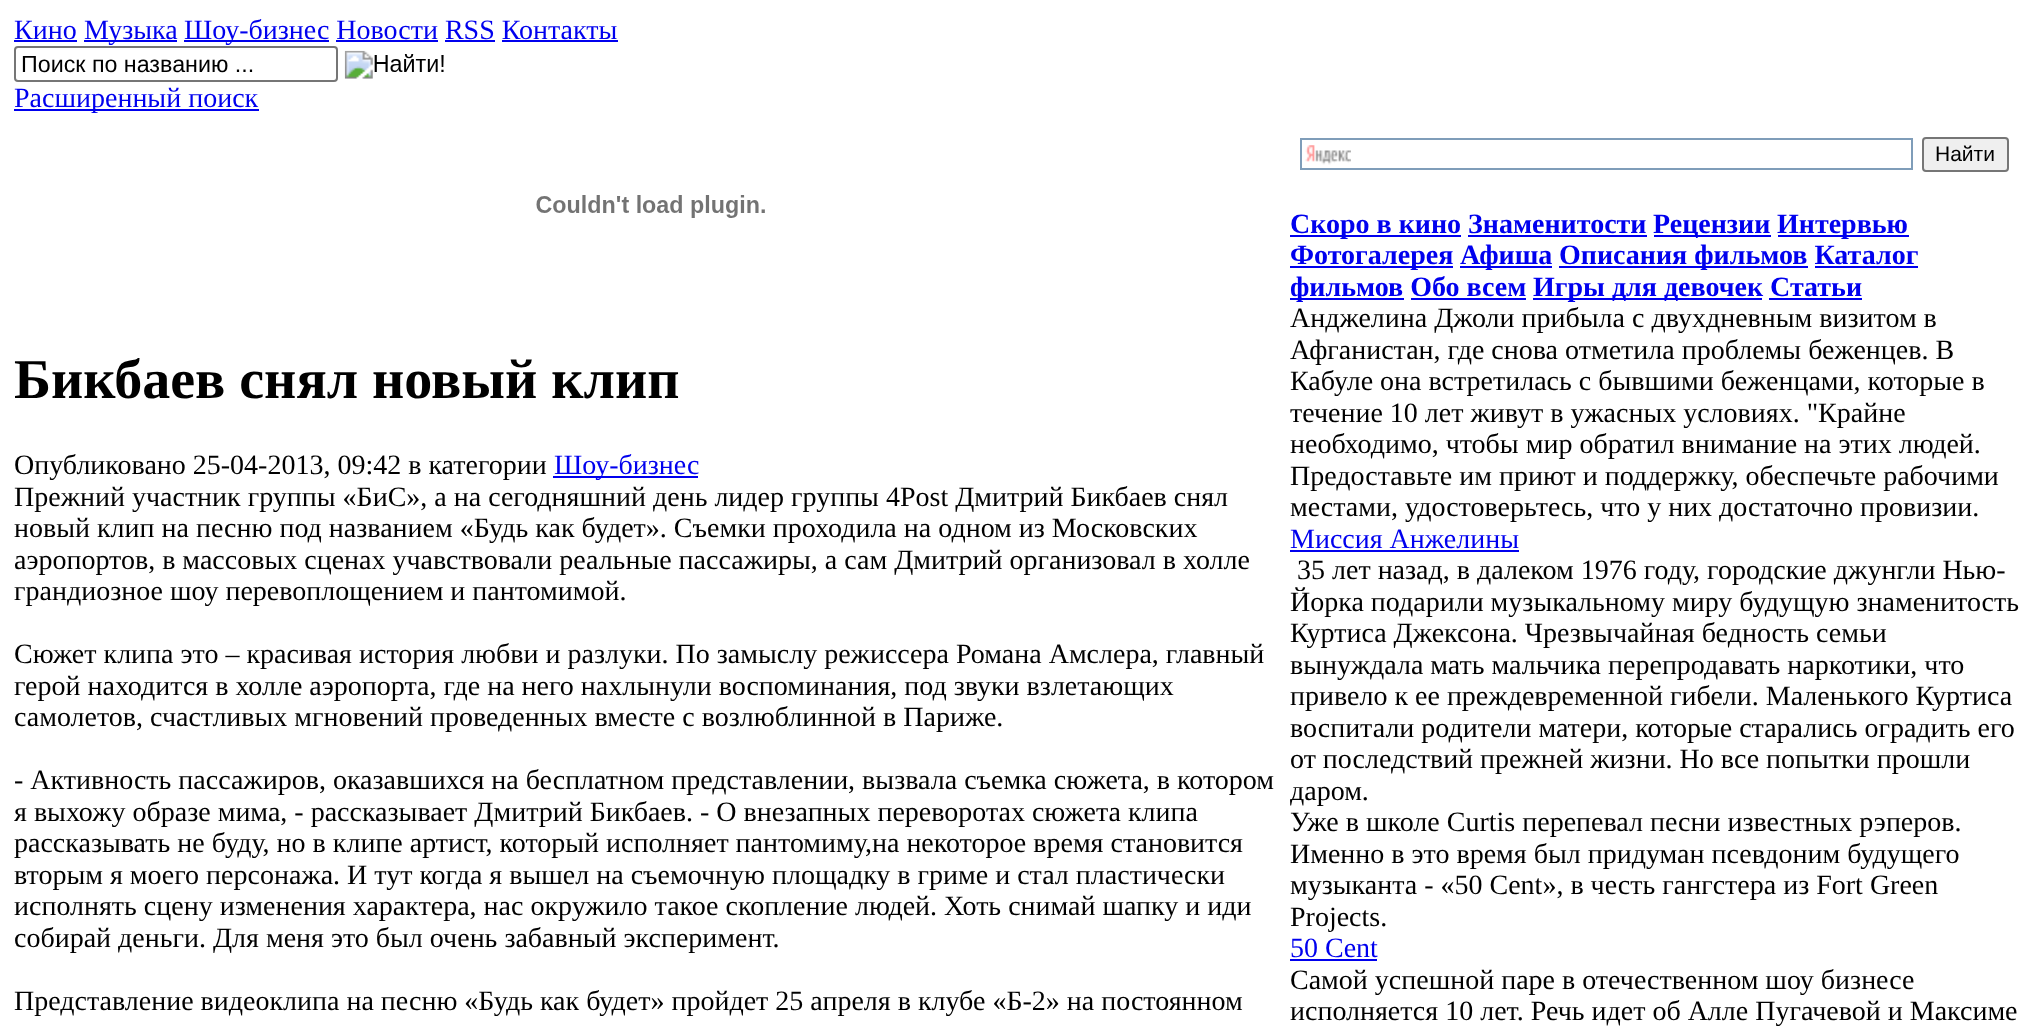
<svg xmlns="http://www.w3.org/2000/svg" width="2032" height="1026">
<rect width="100%" height="100%" fill="#fff"/>
<text x="14" y="39" style="font-family:Liberation Serif;font-size:28px;fill:#00e">Кино</text>
<rect x="14" y="40" width="63" height="2" fill="#00e"/>
<rect x="84" y="40" width="93" height="2" fill="#00e"/>
<text x="84" y="39" style="font-family:Liberation Serif;font-size:28px;fill:#00e">Музыка</text>
<rect x="184" y="40" width="145" height="2" fill="#00e"/>
<text x="184" y="39" style="font-family:Liberation Serif;font-size:28px;fill:#00e">Шоу-бизнес Новости RSS Контакты</text>
<rect x="336" y="40" width="102" height="2" fill="#00e"/>
<rect x="445" y="40" width="50" height="2" fill="#00e"/>
<rect x="502" y="40" width="116" height="2" fill="#00e"/>
<rect x="15" y="47" width="322" height="34" rx="3" fill="none" stroke="#767676" stroke-width="2"/>
<text x="21" y="72" style="font-family:Liberation Sans;font-size:23.25px;fill:#000">Поиск по названию ...</text>
<image x="344" y="50" width="100" height="29" href="media/1.png"/>
<rect x="14" y="109" width="245" height="2" fill="#00e"/>
<text x="14" y="107" style="font-family:Liberation Serif;font-size:28px;fill:#00e">Расширенный поиск</text>
<image x="536" y="195" width="229" height="23" href="media/2.png"/>
<text x="14" y="398" style="font-family:Liberation Serif;font-size:56px;font-weight:bold;fill:#000">Бикбаев снял новый клип</text>
<text x="14" y="474" style="font-family:Liberation Serif;font-size:28px;fill:#000">Опубликовано 25-04-2013, 09:42 в категории</text>
<rect x="553" y="476" width="145" height="2" fill="#00e"/>
<text x="554" y="474" style="font-family:Liberation Serif;font-size:28px;fill:#00e">Шоу-бизнес</text>
<text x="14" y="506" style="font-family:Liberation Serif;font-size:28px;fill:#000">Прежний участник группы «БиС», а на сегодняшний день лидер группы 4Post Дмитрий Бикбаев снял</text>
<text x="14" y="537" style="font-family:Liberation Serif;font-size:28px;fill:#000">новый клип на песню под названием «Будь как будет». Съемки проходила на одном из Московских</text>
<text x="14" y="569" style="font-family:Liberation Serif;font-size:28px;fill:#000">аэропортов, в массовых сценах учавствовали реальные пассажиры, а сам Дмитрий организовал в холле</text>
<text x="14" y="600" style="font-family:Liberation Serif;font-size:28px;fill:#000">грандиозное шоу перевоплощением и пантомимой.</text>
<text x="14" y="663" style="font-family:Liberation Serif;font-size:28px;fill:#000">Сюжет клипа это – красивая история любви и разлуки. По замыслу режиссера Романа Амслера, главный</text>
<text x="14" y="695" style="font-family:Liberation Serif;font-size:28px;fill:#000">герой находится в холле аэропорта, где на него нахлынули воспоминания, под звуки взлетающих</text>
<text x="14" y="726" style="font-family:Liberation Serif;font-size:28px;fill:#000">самолетов, счастливых мгновений проведенных вместе с возлюблинной в Париже.</text>
<text x="14" y="789" style="font-family:Liberation Serif;font-size:28px;fill:#000">- Активность пассажиров, оказавшихся на бесплатном представлении, вызвала съемка сюжета, в котором</text>
<text x="14" y="821" style="font-family:Liberation Serif;font-size:28px;fill:#000">я выхожу образе мима, - рассказывает Дмитрий Бикбаев. - О внезапных переворотах сюжета клипа</text>
<text x="14" y="852" style="font-family:Liberation Serif;font-size:28px;fill:#000">рассказывать не буду, но в клипе артист, который исполняет пантомиму,на некоторое время становится</text>
<text x="14" y="884" style="font-family:Liberation Serif;font-size:28px;fill:#000">вторым я моего персонажа. И тут когда я вышел на съемочную площадку в гриме и стал пластически</text>
<text x="14" y="915" style="font-family:Liberation Serif;font-size:28px;fill:#000">исполнять сцену изменения характера, нас окружило такое скопление людей. Хоть снимай шапку и иди</text>
<text x="14" y="947" style="font-family:Liberation Serif;font-size:28px;fill:#000">собирай деньги. Для меня это был очень забавный эксперимент.</text>
<text x="14" y="1010" style="font-family:Liberation Serif;font-size:28px;fill:#000">Представление видеоклипа на песню «Будь как будет» пройдет 25 апреля в клубе «Б-2» на постоянном</text>
<image x="1305" y="145" width="46" height="20" href="media/3.png"/>
<rect x="1301" y="139" width="611" height="30" fill="none" stroke="#7f9db9" stroke-width="2"/>
<rect x="1923" y="138" width="85" height="33" rx="3" fill="#efefef" stroke="#767676" stroke-width="2"/>
<text x="1935" y="161" style="font-family:Liberation Sans;font-size:21px;fill:#000">Найти</text>
<rect x="1290" y="235" width="171" height="2" fill="#00e"/>
<text x="1290" y="233" style="font-family:Liberation Serif;font-size:28px;font-weight:bold;fill:#00e">Скоро в кино Знаменитости</text>
<rect x="1654" y="235" width="117" height="2" fill="#00e"/>
<text x="1653" y="233" style="font-family:Liberation Serif;font-size:28px;font-weight:bold;fill:#00e">Рецензии</text>
<rect x="1778" y="235" width="131" height="2" fill="#00e"/>
<text x="1777" y="233" style="font-family:Liberation Serif;font-size:28px;font-weight:bold;fill:#00e">Интервью</text>
<rect x="1468" y="235" width="179" height="2" fill="#00e"/>
<rect x="1290" y="266" width="163" height="2" fill="#00e"/>
<text x="1290" y="264" style="font-family:Liberation Serif;font-size:28px;font-weight:bold;fill:#00e">Фотогалерея</text>
<rect x="1460" y="266" width="92" height="2" fill="#00e"/>
<text x="1460" y="264" style="font-family:Liberation Serif;font-size:28px;font-weight:bold;fill:#00e">Афиша</text>
<rect x="1559" y="266" width="249" height="2" fill="#00e"/>
<text x="1559" y="264" style="font-family:Liberation Serif;font-size:28px;font-weight:bold;fill:#00e">Описания фильмов Каталог</text>
<rect x="1290" y="298" width="114" height="2" fill="#00e"/>
<text x="1290" y="296" style="font-family:Liberation Serif;font-size:28px;font-weight:bold;fill:#00e">фильмов Обо всем</text>
<rect x="1815" y="266" width="103" height="2" fill="#00e"/>
<rect x="1533" y="298" width="229" height="2" fill="#00e"/>
<text x="1533" y="296" style="font-family:Liberation Serif;font-size:28px;font-weight:bold;fill:#00e">Игры для девочек Статьи</text>
<rect x="1411" y="298" width="115" height="2" fill="#00e"/>
<rect x="1769" y="298" width="93" height="2" fill="#00e"/>
<text x="1290" y="327" style="font-family:Liberation Serif;font-size:28px;fill:#000">Анджелина Джоли прибыла с двухдневным визитом в</text>
<text x="1290" y="359" style="font-family:Liberation Serif;font-size:28px;fill:#000">Афганистан, где снова отметила проблемы беженцев. В</text>
<text x="1290" y="390" style="font-family:Liberation Serif;font-size:28px;fill:#000">Кабуле она встретилась с бывшими беженцами, которые в</text>
<text x="1290" y="422" style="font-family:Liberation Serif;font-size:28px;fill:#000">течение 10 лет живут в ужасных условиях. "Крайне</text>
<text x="1290" y="453" style="font-family:Liberation Serif;font-size:28px;fill:#000">необходимо, чтобы мир обратил внимание на этих людей.</text>
<text x="1290" y="485" style="font-family:Liberation Serif;font-size:28px;fill:#000">Предоставьте им приют и поддержку, обеспечьте рабочими</text>
<text x="1290" y="516" style="font-family:Liberation Serif;font-size:28px;fill:#000">местами, удостоверьтесь, что у них достаточно провизии.</text>
<text x="1290" y="548" style="font-family:Liberation Serif;font-size:28px;fill:#00e">Миссия Анжелины</text>
<rect x="1290" y="550" width="229" height="2" fill="#00e"/>
<text x="1297" y="579" style="font-family:Liberation Serif;font-size:28px;fill:#000">35 лет назад, в далеком 1976 году, городские джунгли Нью-</text>
<text x="1290" y="611" style="font-family:Liberation Serif;font-size:28px;fill:#000">Йорка подарили музыкальному миру будущую знаменитость</text>
<text x="1290" y="642" style="font-family:Liberation Serif;font-size:28px;fill:#000">Куртиса Джексона. Чрезвычайная бедность семьи</text>
<text x="1290" y="674" style="font-family:Liberation Serif;font-size:28px;fill:#000">вынуждала мать мальчика перепродавать наркотики, что</text>
<text x="1290" y="705" style="font-family:Liberation Serif;font-size:28px;fill:#000">привело к ее преждевременной гибели. Маленького Куртиса</text>
<text x="1290" y="737" style="font-family:Liberation Serif;font-size:28px;fill:#000">воспитали родители матери, которые старались оградить его</text>
<text x="1290" y="768" style="font-family:Liberation Serif;font-size:28px;fill:#000">от последствий прежней жизни. Но все попытки прошли</text>
<text x="1290" y="800" style="font-family:Liberation Serif;font-size:28px;fill:#000">даром.</text>
<text x="1290" y="831" style="font-family:Liberation Serif;font-size:28px;fill:#000">Уже в школе Curtis перепевал песни известных рэперов.</text>
<text x="1290" y="863" style="font-family:Liberation Serif;font-size:28px;fill:#000">Именно в это время был придуман псевдоним будущего</text>
<text x="1290" y="894" style="font-family:Liberation Serif;font-size:28px;fill:#000">музыканта - «50 Cent», в честь гангстера из Fort Green</text>
<text x="1290" y="926" style="font-family:Liberation Serif;font-size:28px;fill:#000">Projects.</text>
<text x="1290" y="957" style="font-family:Liberation Serif;font-size:28px;fill:#00e">50 Cent</text>
<rect x="1290" y="959" width="87" height="2" fill="#00e"/>
<text x="1290" y="989" style="font-family:Liberation Serif;font-size:28px;fill:#000">Самой успешной паре в отечественном шоу бизнесе</text>
<text x="1290" y="1020" style="font-family:Liberation Serif;font-size:28px;fill:#000">исполняется 10 лет. Речь идет об Алле Пугачевой и Максиме</text>
</svg>
